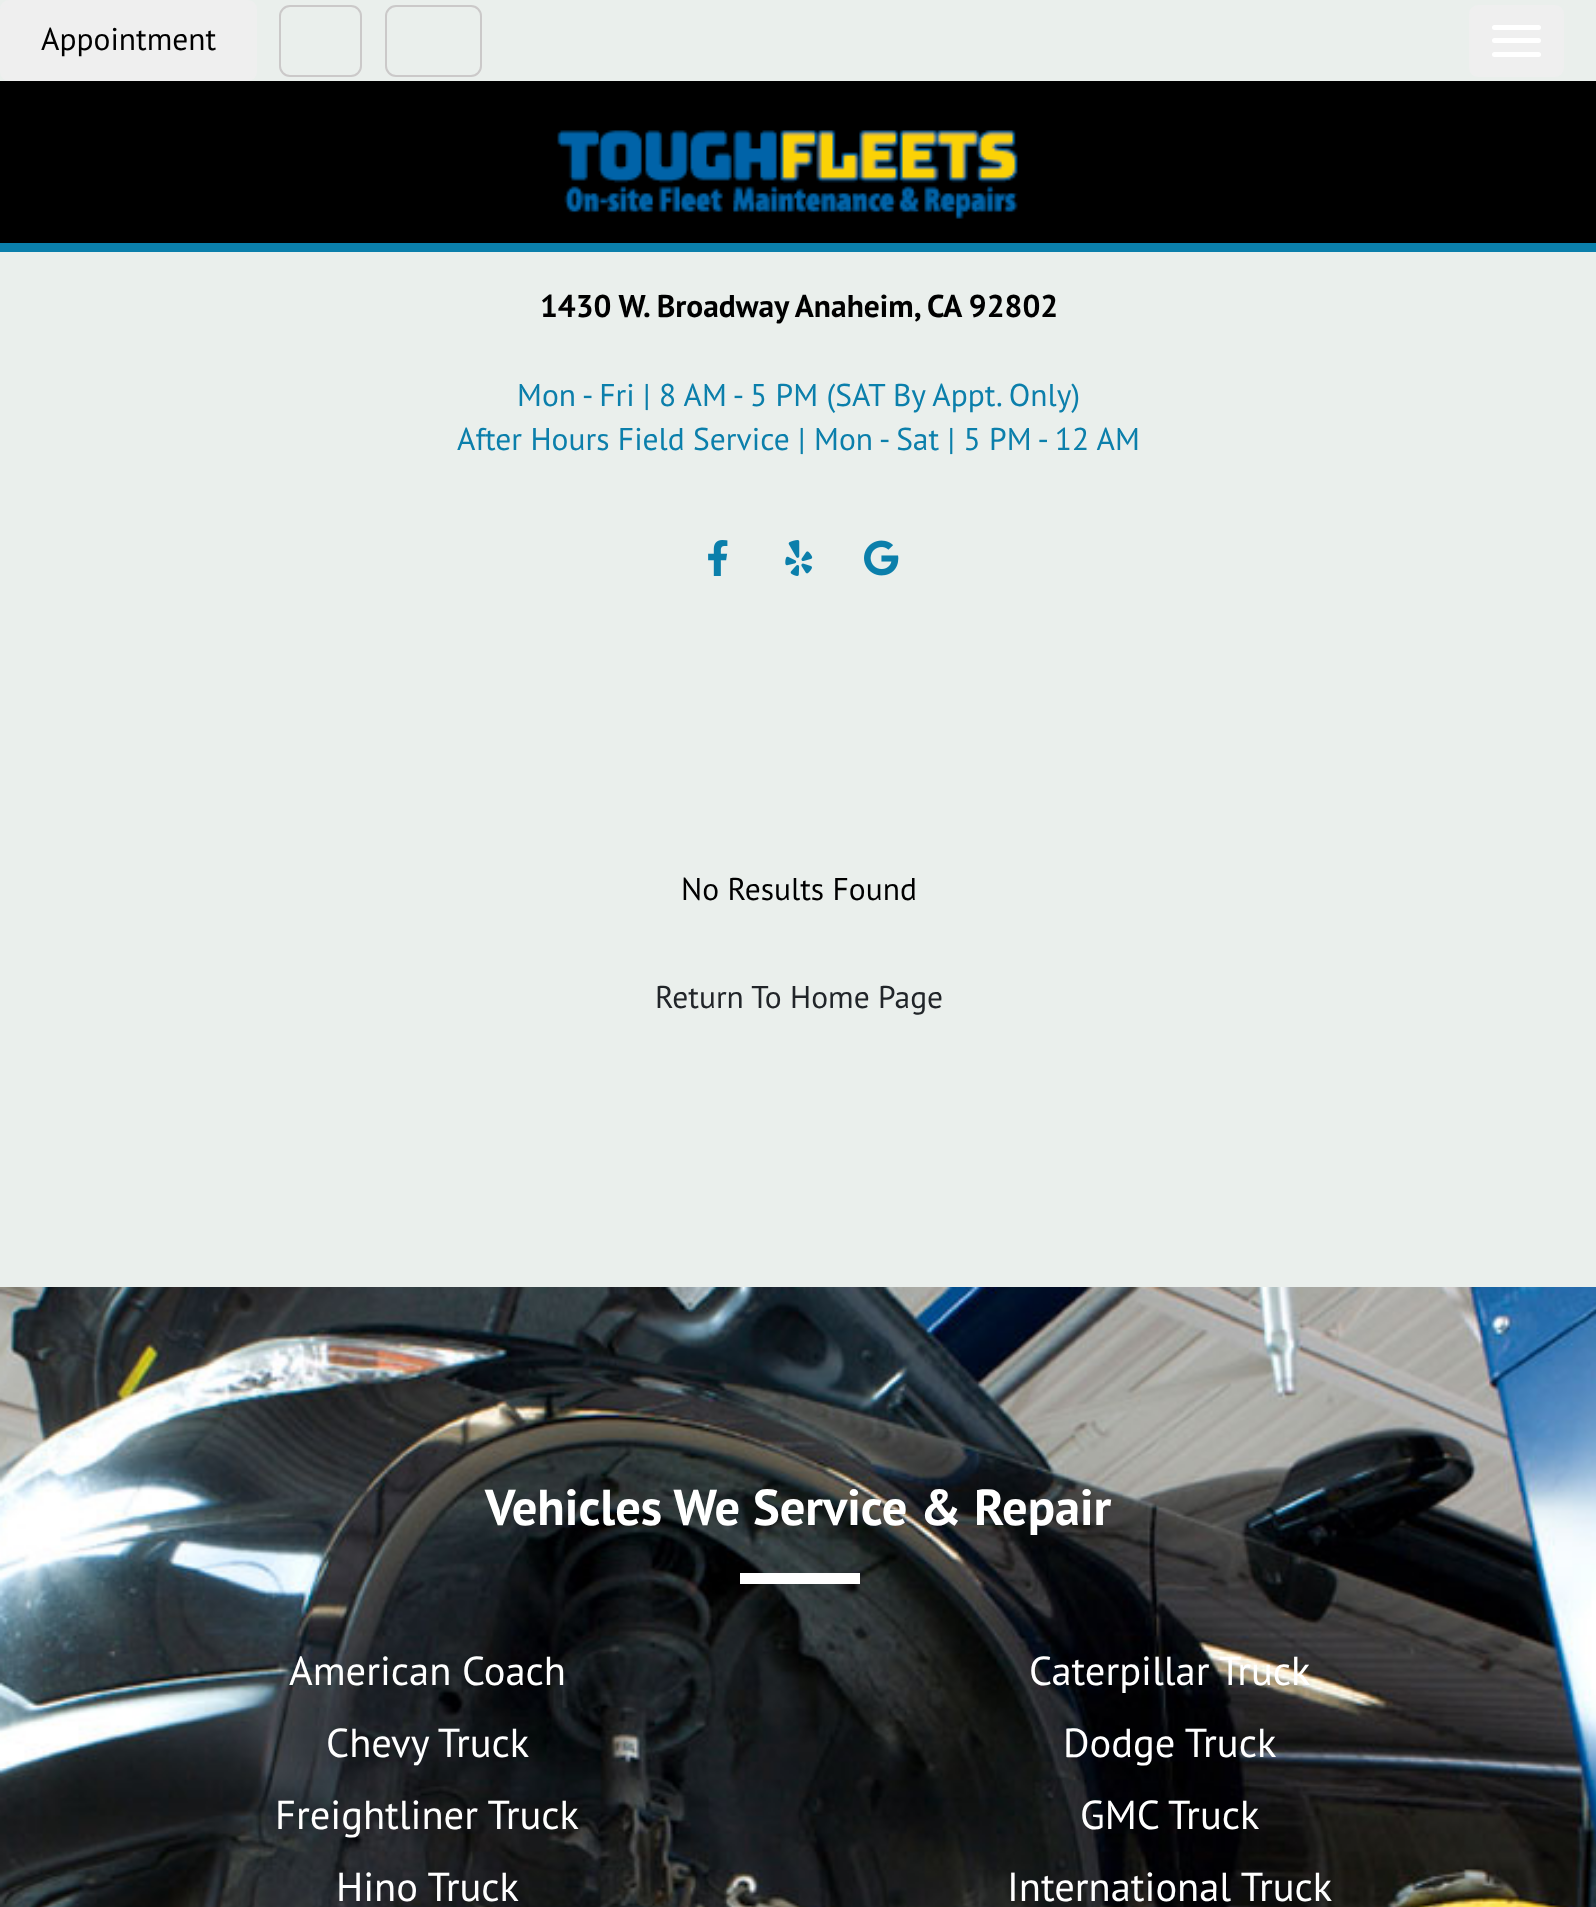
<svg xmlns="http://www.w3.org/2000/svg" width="1596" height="1907">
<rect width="100%" height="100%" fill="#eaefec"/>
<rect width="257" height="81" rx="9" fill="#efefef"/>
<text x="41" y="50" style="font-family:PT Sans;font-size:31.5px;fill:#000">Appointment</text>
<rect x="280" y="6" width="81" height="70" rx="10" fill="none" stroke="#cbc9c9" stroke-width="2"/>
<rect x="386" y="6" width="95" height="70" rx="10" fill="none" stroke="#cbc9c9" stroke-width="2"/>
<rect x="1469" y="5" width="95" height="72" rx="9" fill="#efefef"/>
<rect x="1492" y="25" width="49" height="5" rx="2.5" fill="#fff"/>
<rect x="1492" y="38" width="49" height="5" rx="2.5" fill="#fff"/>
<rect x="1492" y="52" width="49" height="5" rx="2.5" fill="#fff"/>
<rect y="81" width="1596" height="162" fill="#000"/>
<rect y="243" width="1596" height="9" fill="#0b7fab"/>
<image x="557" y="130" width="461" height="89" href="media/1.png"/>
<text x="540" y="317" style="font-family:PT Sans;font-size:31.5px;font-weight:bold;fill:#000">1430 W. Broadway Anaheim, CA 92802</text>
<text x="517" y="406" style="font-family:PT Sans;font-size:31.5px;fill:#0b7fab">Mon - Fri | 8 AM - 5 PM (SAT By Appt. Only)</text>
<text x="457" y="450" style="font-family:PT Sans;font-size:31.5px;fill:#0b7fab">After Hours Field Service | Mon - Sat | 5 PM - 12 AM</text>
<image x="708" y="540" width="20" height="36" href="media/2.png"/>
<image x="785" y="540" width="28" height="36" href="media/3.png"/>
<image x="864" y="540" width="35" height="36" href="media/4.png"/>
<text x="681" y="900" style="font-family:PT Sans;font-size:31.5px;fill:#000">No Results Found</text>
<text x="655" y="1008" style="font-family:PT Sans;font-size:31.5px;fill:#212529">Return To Home Page</text>
<image x="0" y="1287" width="1596" height="620" href="media/5.png"/>
<text x="485" y="1525" style="font-family:PT Sans;font-size:50.5px;font-weight:bold;fill:#fff">Vehicles We Service &amp; Repair</text>
<rect x="740" y="1573" width="120" height="11" fill="#fff"/>
<text x="289" y="1685" style="font-family:PT Sans;font-size:40.5px;fill:#fff">American Coach</text>
<text x="1029" y="1685" style="font-family:PT Sans;font-size:40.5px;fill:#fff">Caterpillar Truck</text>
<text x="326" y="1757" style="font-family:PT Sans;font-size:40.5px;fill:#fff">Chevy Truck</text>
<text x="1063" y="1757" style="font-family:PT Sans;font-size:40.5px;fill:#fff">Dodge Truck</text>
<text x="275" y="1829" style="font-family:PT Sans;font-size:40.5px;fill:#fff">Freightliner Truck</text>
<text x="1080" y="1829" style="font-family:PT Sans;font-size:40.5px;fill:#fff">GMC Truck</text>
<text x="336" y="1901" style="font-family:PT Sans;font-size:40.5px;fill:#fff">Hino Truck</text>
<text x="1007" y="1901" style="font-family:PT Sans;font-size:40.5px;fill:#fff">International Truck</text>
</svg>
